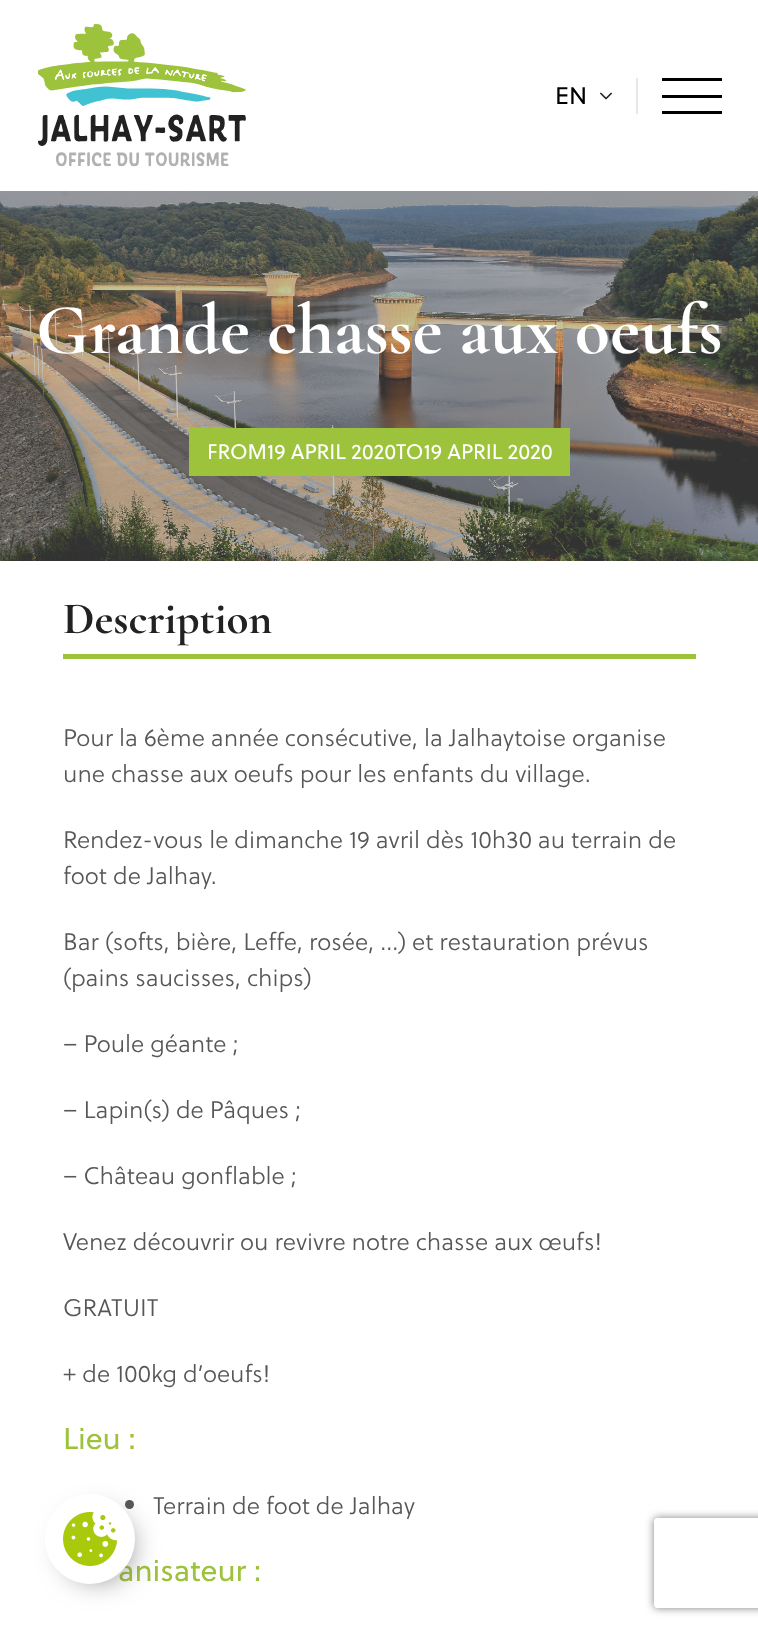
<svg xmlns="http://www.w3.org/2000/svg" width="758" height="1628">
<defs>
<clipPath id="clip1"><path d="M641 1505h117v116h-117zm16 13h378c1.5 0 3 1.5 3 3v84c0 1.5-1.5 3-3 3h-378c-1.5 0-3-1.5-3-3v-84c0-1.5 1.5-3 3-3z" clip-rule="evenodd"/></clipPath>
</defs>
<rect width="100%" height="100%" fill="#fff"/>
<image x="38" y="24" width="208" height="143" href="media/1.png"/>
<rect x="636" y="78" width="2" height="36" fill="#e5e7eb"/>
<text x="555" y="104" style="font-family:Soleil;font-size:24px;fill:#000">EN</text>
<image x="600" y="92" width="12" height="8" href="media/2.png"/>
<rect x="662" y="78" width="60" height="3" fill="#000"/>
<rect x="662" y="95" width="60" height="3" fill="#000"/>
<rect x="662" y="111" width="60" height="3" fill="#000"/>
<image x="0" y="191" width="758" height="370" href="media/3.png"/>
<text x="36" y="353" style="font-family:Cormorant Garamond;font-size:72px;font-weight:bold;fill:#fff">Grande chasse aux oeufs</text>
<rect x="189" y="428" width="381" height="48" fill="#9dc23c"/>
<text x="207" y="459" style="font-family:Soleil;font-size:21px;fill:#fff">FROM19 APRIL 2020TO19 APRIL 2020</text>
<text x="63" y="633" style="font-family:Cormorant Garamond;font-size:45px;font-weight:bold;fill:#222">Description</text>
<rect x="63" y="654" width="633" height="5" fill="#9dc23c"/>
<text x="63" y="746" style="font-family:Soleil;font-size:24px;font-weight:300;fill:#585757">Pour la 6ème année consécutive, la Jalhaytoise organise</text>
<text x="63" y="782" style="font-family:Soleil;font-size:24px;font-weight:300;fill:#585757">une chasse aux oeufs pour les enfants du village.</text>
<text x="63" y="848" style="font-family:Soleil;font-size:24px;font-weight:300;fill:#585757">Rendez-vous le dimanche 19 avril dès 10h30 au terrain de</text>
<text x="63" y="884" style="font-family:Soleil;font-size:24px;font-weight:300;fill:#585757">foot de Jalhay.</text>
<text x="63" y="950" style="font-family:Soleil;font-size:24px;font-weight:300;fill:#585757">Bar (softs, bière, Leffe, rosée, …) et restauration prévus</text>
<text x="63" y="986" style="font-family:Soleil;font-size:24px;font-weight:300;fill:#585757">(pains saucisses, chips)</text>
<text x="63" y="1052" style="font-family:Soleil;font-size:24px;font-weight:300;fill:#585757">– Poule géante ;</text>
<text x="63" y="1118" style="font-family:Soleil;font-size:24px;font-weight:300;fill:#585757">– Lapin(s) de Pâques ;</text>
<text x="63" y="1184" style="font-family:Soleil;font-size:24px;font-weight:300;fill:#585757">– Château gonflable ;</text>
<text x="63" y="1250" style="font-family:Soleil;font-size:24px;font-weight:300;fill:#585757">Venez découvrir ou revivre notre chasse aux œufs!</text>
<text x="63" y="1316" style="font-family:Soleil;font-size:24px;font-weight:300;fill:#585757">GRATUIT</text>
<text x="63" y="1382" style="font-family:Soleil;font-size:24px;font-weight:300;fill:#585757">+ de 100kg d’oeufs!</text>
<text x="63" y="1449" style="font-family:Soleil;font-size:30px;fill:#9dc23c">Lieu :</text>
<circle cx="129.5" cy="1504.5" r="4.5" fill="#585757"/>
<text x="153" y="1514" style="font-family:Soleil;font-size:24px;font-weight:300;fill:#585757">Terrain de foot de Jalhay</text>
<text x="118" y="1581" style="font-family:Soleil;font-size:30px;fill:#9dc23c">anisateur :</text>
<rect x="68" y="1517" width="60" height="60" rx="30" fill="#606060" filter="blur(15px)"/>
<circle cx="90" cy="1539" r="45" fill="#fff"/>
<image x="63" y="1512" width="54" height="54" href="media/4.png"/>
<g clip-path="url(#clip1)">
<rect x="654" y="1518" width="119" height="90" rx="3" fill="#808080" filter="blur(4px)"/>
</g>
</svg>
